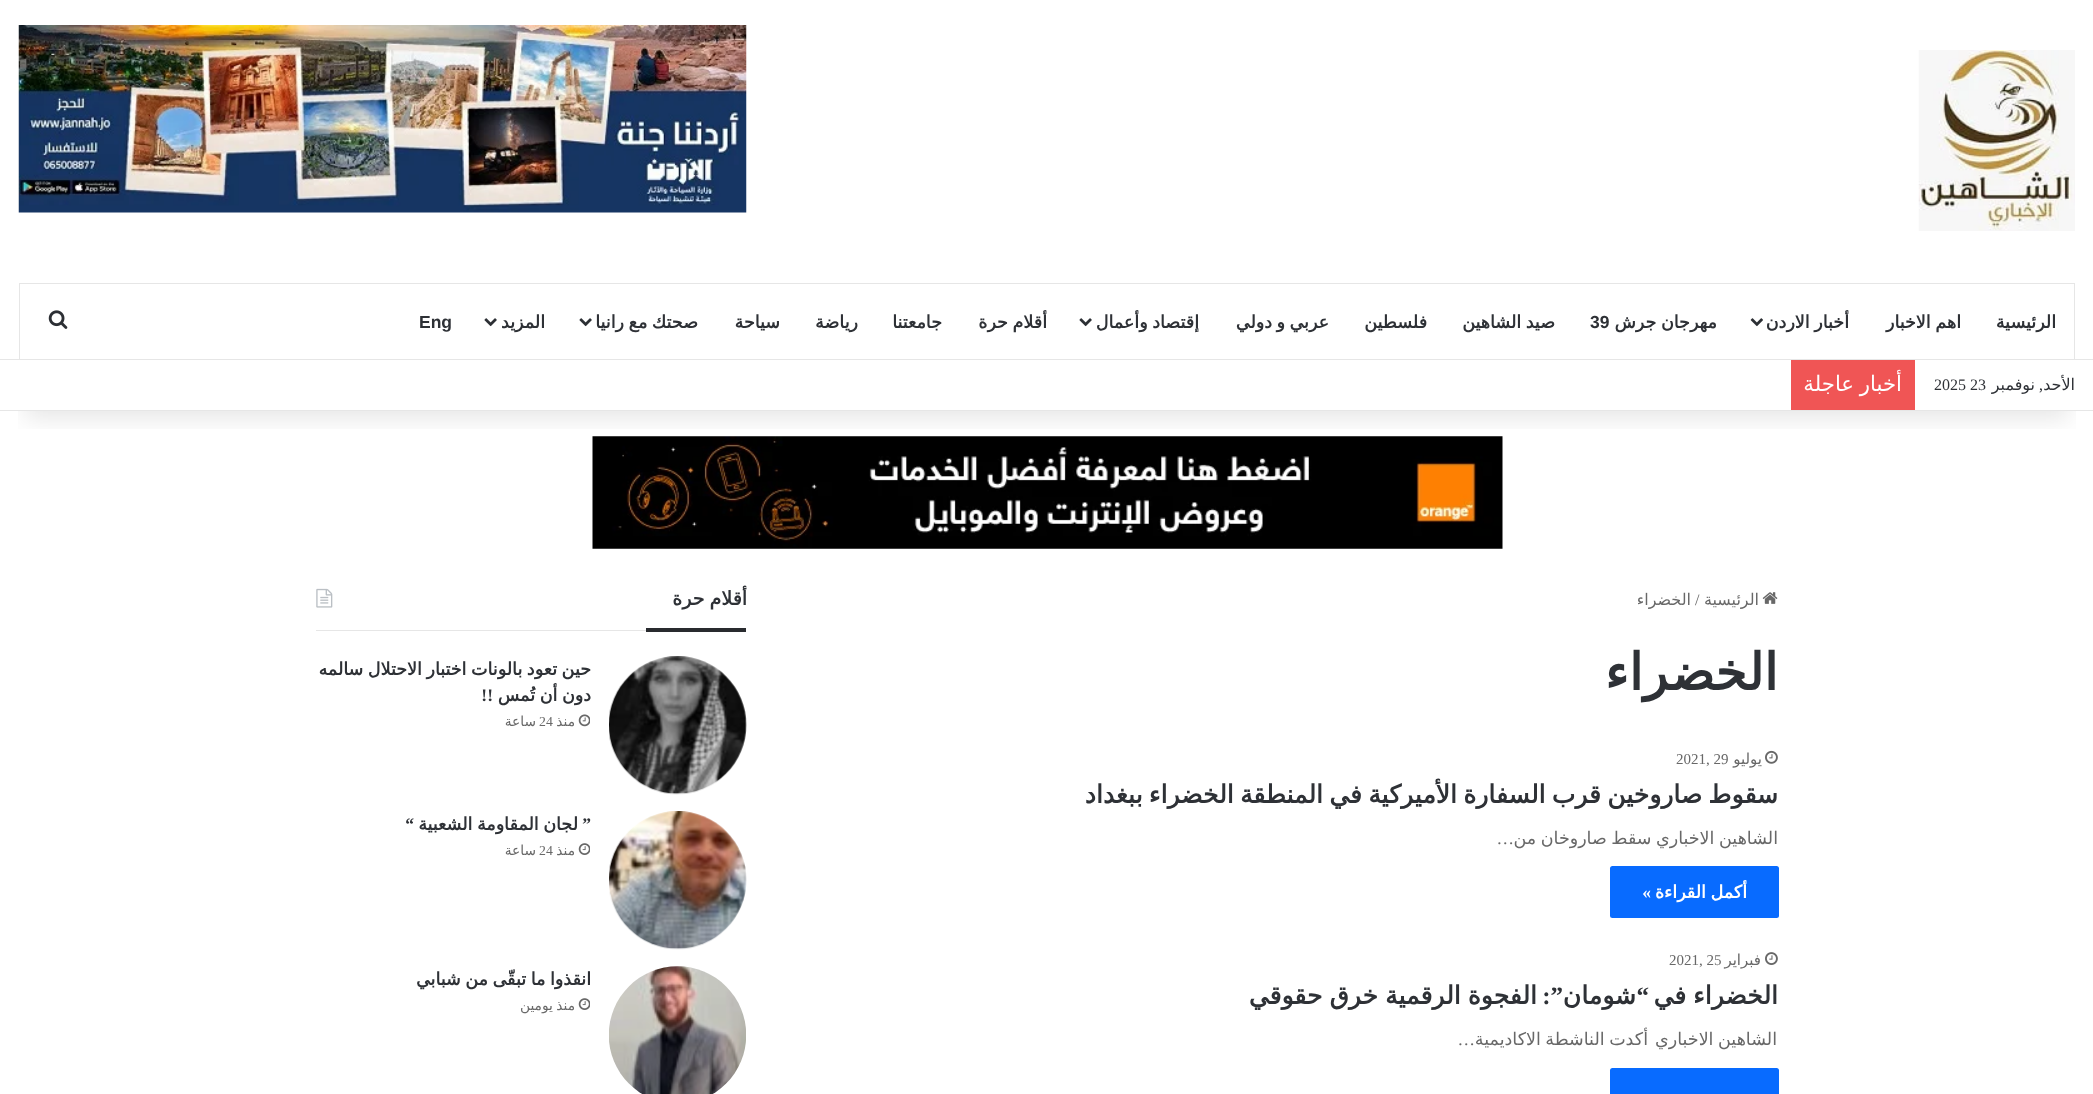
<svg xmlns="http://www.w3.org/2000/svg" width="2093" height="1094">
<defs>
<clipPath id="clip1"><rect x="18" y="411" width="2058" height="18"/></clipPath>
</defs>
<rect width="100%" height="100%" fill="#fff"/>
<image x="592" y="436" width="911" height="113" href="media/6.png"/>
<g clip-path="url(#clip1)">
<rect x="25" y="56" width="2044" height="362" fill="#0000001a" filter="blur(12.5px)"/>
</g>
<image x="1918" y="50" width="157" height="181" href="media/1.png"/>
<image x="18" y="25" width="729" height="188" href="media/2.png"/>
<rect y="359" width="2093" height="1" fill="#e6e6e6"/>
<rect x="19.5" y="283.5" width="2055" height="76" fill="none" stroke="#e6e6e6"/>
<text x="2056" y="328" style="font-family:DejaVu Sans;font-size:17.5px;font-weight:bold;direction:rtl;fill:#2e3136">الرئيسية</text>
<text x="1961" y="328" word-spacing="-1" style="font-family:DejaVu Sans;font-size:17.5px;font-weight:bold;direction:rtl;fill:#2e3136">اهم الاخبار</text>
<text x="1849" y="328" word-spacing="-1" style="font-family:DejaVu Sans;font-size:17.5px;font-weight:bold;direction:rtl;fill:#2e3136">أخبار الاردن</text>
<image x="1750" y="318" width="13" height="9" href="media/3.png"/>
<text x="1717" y="328" word-spacing="-1" style="font-family:DejaVu Sans;font-size:17.5px;font-weight:bold;direction:rtl;fill:#2e3136">مهرجان جرش</text>
<text x="1590" y="328" style="font-family:Liberation Sans;font-size:17.5px;font-weight:bold;fill:#2e3136">39</text>
<text x="1555" y="328" word-spacing="-1" style="font-family:DejaVu Sans;font-size:17.5px;font-weight:bold;direction:rtl;fill:#2e3136">صيد الشاهين</text>
<text x="1427" y="328" style="font-family:DejaVu Sans;font-size:17.5px;font-weight:bold;direction:rtl;fill:#2e3136">فلسطين</text>
<text x="1329" y="328" style="font-family:DejaVu Sans;font-size:17.5px;font-weight:bold;direction:rtl;fill:#2e3136">عربي</text>
<text x="1285" y="328" word-spacing="-1" style="font-family:DejaVu Sans;font-size:17.5px;font-weight:bold;direction:rtl;fill:#2e3136">و دولي</text>
<text x="1199" y="328" word-spacing="-1" style="font-family:DejaVu Sans;font-size:17.5px;font-weight:bold;direction:rtl;fill:#2e3136">إقتصاد وأعمال</text>
<image x="1079" y="318" width="13" height="9" href="media/4.png"/>
<text x="1047" y="328" word-spacing="-1" style="font-family:DejaVu Sans;font-size:17.5px;font-weight:bold;direction:rtl;fill:#2e3136">أقلام حرة</text>
<text x="942" y="328" style="font-family:DejaVu Sans;font-size:17.5px;font-weight:bold;direction:rtl;fill:#2e3136">جامعتنا</text>
<text x="858" y="328" style="font-family:DejaVu Sans;font-size:17.5px;font-weight:bold;direction:rtl;fill:#2e3136">رياضة</text>
<text x="780" y="328" style="font-family:DejaVu Sans;font-size:17.5px;font-weight:bold;direction:rtl;fill:#2e3136">سياحة</text>
<text x="698" y="328" word-spacing="-1" style="font-family:DejaVu Sans;font-size:17.5px;font-weight:bold;direction:rtl;fill:#2e3136">صحتك مع رانيا</text>
<image x="579" y="318" width="13" height="9" href="media/4.png"/>
<text x="545" y="328" style="font-family:DejaVu Sans;font-size:17.5px;font-weight:bold;direction:rtl;fill:#2e3136">المزيد</text>
<image x="484" y="318" width="13" height="9" href="media/4.png"/>
<text x="419" y="328" style="font-family:Liberation Sans;font-size:17.5px;font-weight:bold;fill:#2e3136">Eng</text>
<image x="48" y="310" width="20" height="19" href="media/5.png"/>
<rect y="410" width="2093" height="1" fill="#e6e6e6"/>
<text x="2075" y="390" style="font-family:DejaVu Sans;font-size:16px;direction:rtl;fill:#2e3136">الأحد</text>
<text x="2043" y="390" style="font-family:Liberation Serif;font-size:16px;direction:rtl;fill:#2e3136">,</text>
<text x="2035" y="390" style="font-family:DejaVu Sans;font-size:16px;direction:rtl;fill:#2e3136">نوفمبر</text>
<text x="1934" y="390" style="font-family:Liberation Serif;font-size:16px;fill:#2e3136">2025 23</text>
<rect x="1791" y="360" width="124" height="50" fill="#f05555"/>
<text x="1902" y="391" word-spacing="-1" style="font-family:DejaVu Sans;font-size:21.25px;direction:rtl;fill:#fff">أخبار عاجلة</text>
<image x="1762" y="592" width="16" height="12" href="media/7.png"/>
<text x="1759" y="605" style="font-family:DejaVu Sans;font-size:16px;direction:rtl;fill:#686868">الرئيسية</text>
<text x="1695" y="605" style="font-family:Liberation Serif;font-size:16px;fill:#686868">/</text>
<text x="1691" y="605" style="font-family:DejaVu Sans;font-size:16px;direction:rtl;fill:#686868">الخضراء</text>
<text x="1778" y="690" style="font-family:DejaVu Sans;font-size:51px;font-weight:bold;direction:rtl;fill:#2e3136">الخضراء</text>
<image x="1765" y="750" width="13" height="14" href="media/8.png"/>
<text x="1762" y="764" style="font-family:DejaVu Sans;font-size:15px;direction:rtl;fill:#686868">يوليو</text>
<text x="1676" y="764" style="font-family:Liberation Serif;font-size:15px;fill:#686868">2021, 29</text>
<text x="1778" y="803" word-spacing="-1.75" style="font-family:DejaVu Sans;font-size:25px;font-weight:bold;direction:rtl;fill:#2e3136">سقوط صاروخين قرب السفارة الأميركية في المنطقة الخضراء ببغداد</text>
<text x="1778" y="844" word-spacing="-1" style="font-family:DejaVu Sans;font-size:17.5px;direction:rtl;fill:#686868">الشاهين الاخباري سقط صاروخان من</text>
<text x="1514" y="844" style="font-family:Liberation Serif;font-size:17.5px;direction:rtl;fill:#686868">…</text>
<rect x="1610" y="866" width="169" height="52" rx="2.5" fill="#086bff"/>
<text x="1747" y="898" word-spacing="-1" style="font-family:DejaVu Sans;font-size:17.5px;font-weight:bold;direction:rtl;fill:#fff">أكمل القراءة</text>
<text x="1651" y="898" style="font-family:Liberation Serif;font-size:17.5px;font-weight:bold;direction:rtl;fill:#fff">»</text>
<image x="1765" y="952" width="13" height="13" href="media/9.png"/>
<text x="1761" y="965" style="font-family:DejaVu Sans;font-size:15px;direction:rtl;fill:#686868">فبراير</text>
<text x="1669" y="965" style="font-family:Liberation Serif;font-size:15px;fill:#686868">2021, 25</text>
<text x="1778" y="1004" word-spacing="-1" style="font-family:DejaVu Sans;font-size:25px;font-weight:bold;direction:rtl;fill:#2e3136">الخضراء في</text>
<text x="1649" y="1004" style="font-family:Liberation Serif;font-size:25px;font-weight:bold;direction:rtl;fill:#2e3136">“</text>
<text x="1636" y="1004" style="font-family:DejaVu Sans;font-size:25px;font-weight:bold;direction:rtl;fill:#2e3136">شومان</text>
<text x="1563" y="1004" style="font-family:Liberation Serif;font-size:25px;font-weight:bold;direction:rtl;fill:#2e3136">”:</text>
<text x="1537" y="1004" word-spacing="-1" style="font-family:DejaVu Sans;font-size:25px;font-weight:bold;direction:rtl;fill:#2e3136">الفجوة الرقمية خرق حقوقي</text>
<text x="1777" y="1045" word-spacing="-1" style="font-family:DejaVu Sans;font-size:17.5px;direction:rtl;fill:#686868">الشاهين الاخباري</text>
<text x="1648" y="1045" word-spacing="-1" style="font-family:DejaVu Sans;font-size:17.5px;direction:rtl;fill:#686868">أكدت الناشطة الاكاديمية</text>
<text x="1475" y="1045" style="font-family:Liberation Serif;font-size:17.5px;direction:rtl;fill:#686868">…</text>
<rect x="1610" y="1068" width="169" height="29" rx="2.5" fill="#086bff"/>
<rect x="316" y="630" width="330" height="1" fill="#e6e6e6"/>
<text x="747" y="605" word-spacing="-1" style="font-family:DejaVu Sans;font-size:19px;font-weight:bold;direction:rtl;fill:#2e3136">أقلام حرة</text>
<image x="316" y="588" width="17" height="20" href="media/10.png"/>
<rect x="646" y="628" width="100" height="4" fill="#292b2f"/>
<image x="609" y="656" width="138" height="139" href="media/11.png"/>
<text x="591" y="675" word-spacing="-1" style="font-family:DejaVu Sans;font-size:17.5px;font-weight:bold;direction:rtl;fill:#2e3136">حين تعود بالونات اختبار الاحتلال سالمه</text>
<text x="591" y="701" word-spacing="-1" style="font-family:DejaVu Sans;font-size:17.5px;font-weight:bold;direction:rtl;fill:#2e3136">دون أن تُمس</text>
<text x="493" y="701" style="font-family:Liberation Serif;font-size:17.5px;font-weight:bold;direction:rtl;fill:#2e3136">!!</text>
<image x="578" y="714" width="12" height="13" href="media/12.png"/>
<text x="575" y="726" style="font-family:DejaVu Sans;font-size:13.75px;direction:rtl;fill:#686868">منذ</text>
<text x="539" y="726" style="font-family:Liberation Serif;font-size:13.75px;fill:#686868">24</text>
<text x="536" y="726" style="font-family:DejaVu Sans;font-size:13.75px;direction:rtl;fill:#686868">ساعة</text>
<image x="609" y="811" width="138" height="139" href="media/13.png"/>
<text x="591" y="830" style="font-family:Liberation Serif;font-size:17.5px;font-weight:bold;direction:rtl;fill:#2e3136">”</text>
<text x="578" y="830" word-spacing="-1" style="font-family:DejaVu Sans;font-size:17.5px;font-weight:bold;direction:rtl;fill:#2e3136">لجان المقاومة الشعبية</text>
<text x="414" y="830" style="font-family:Liberation Serif;font-size:17.5px;font-weight:bold;direction:rtl;fill:#2e3136">“</text>
<image x="578" y="843" width="12" height="12" href="media/14.png"/>
<text x="575" y="855" style="font-family:DejaVu Sans;font-size:13.75px;direction:rtl;fill:#686868">منذ</text>
<text x="539" y="855" style="font-family:Liberation Serif;font-size:13.75px;fill:#686868">24</text>
<text x="536" y="855" style="font-family:DejaVu Sans;font-size:13.75px;direction:rtl;fill:#686868">ساعة</text>
<image x="609" y="966" width="137" height="128" href="media/15.png"/>
<text x="591" y="985" word-spacing="-1" style="font-family:DejaVu Sans;font-size:17.5px;font-weight:bold;direction:rtl;fill:#2e3136">انقذوا ما تبقّى من شبابي</text>
<image x="578" y="998" width="12" height="12" href="media/14.png"/>
<text x="575" y="1010" word-spacing="-1" style="font-family:DejaVu Sans;font-size:13.75px;direction:rtl;fill:#686868">منذ يومين</text>
</svg>
